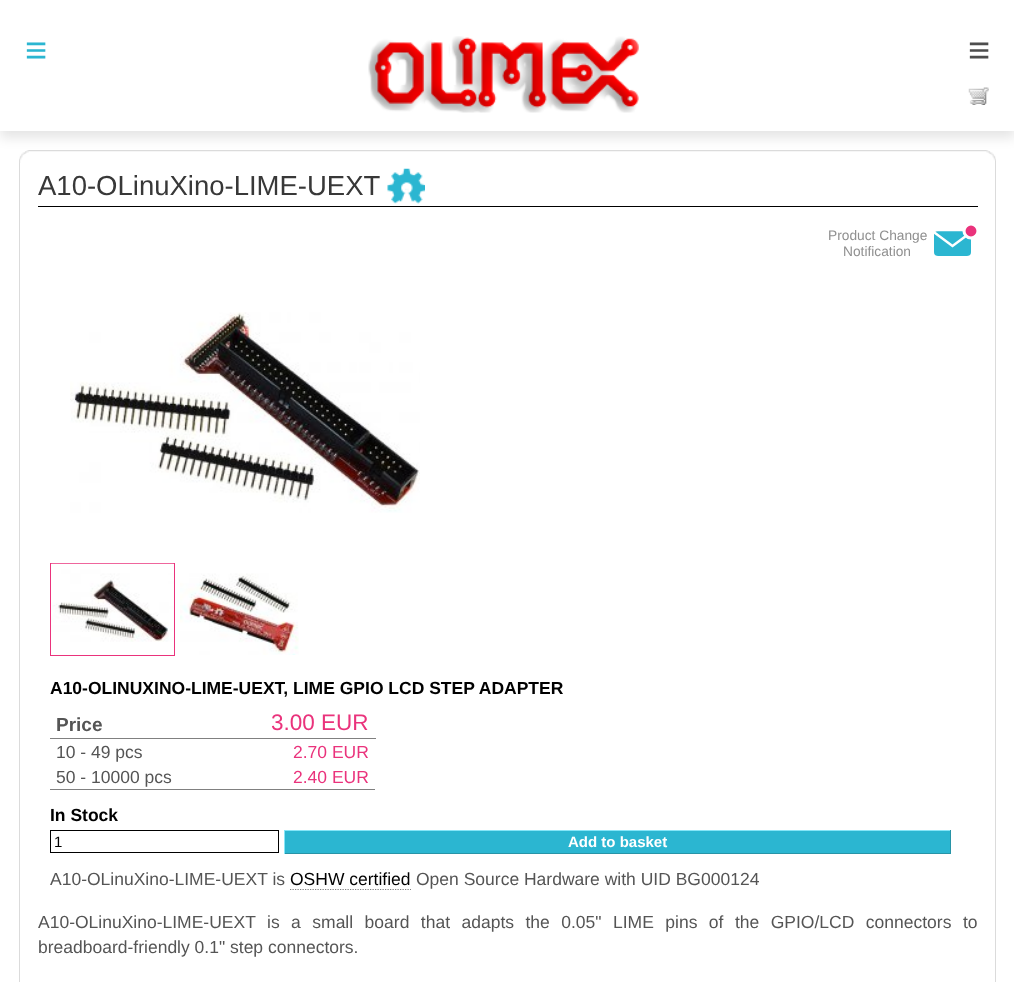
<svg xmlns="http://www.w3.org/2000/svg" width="1014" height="982">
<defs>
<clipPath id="clip1"><rect x="828" y="225" width="150" height="38"/></clipPath>
</defs>
<rect width="100%" height="100%" fill="#fff"/>
<image x="29" y="150" width="957" height="2" href="media/1.png"/>
<image x="986" y="150" width="10" height="11" href="media/2.png"/>
<image x="19" y="150" width="10" height="13" href="media/3.png"/>
<rect y="6" width="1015" height="132" fill="#0000001a" filter="blur(6px)"/>
<rect width="1014" height="131" fill="#fff"/>
<text x="25" y="63" style="font-family:Liberation Sans;font-size:38px;fill:#2bb6d1">≡</text>
<rect x="995" y="161" width="1" height="821" fill="#dbdbdb"/>
<rect x="19" y="163" width="1" height="819" fill="#dbdbdb"/>
<rect x="38" y="206" width="940" height="1" fill="#000"/>
<text x="38" y="195" style="font-family:Liberation Sans;font-size:27.5px;fill:#383838">A10-OLinuXino-LIME-UEXT</text>
<image x="387" y="168" width="38" height="36" href="media/4.png"/>
<text x="828" y="240" style="font-family:Liberation Sans;font-size:13.75px;fill:#909090">Product Change</text>
<rect x="934" y="231" width="37" height="25" rx="4" fill="#2bb6d1"/>
<path d="M931 230l21.5 16l21.5-16z" fill="none" stroke="#fff" stroke-width="2.5"/>
<g clip-path="url(#clip1)">
<circle cx="971" cy="231" r="7" fill="#ea337c" stroke="#fff" stroke-width="3.1"/>
</g>
<text x="843" y="256" style="font-family:Liberation Sans;font-size:13.75px;fill:#909090">Notification</text>
<image x="70" y="312" width="350" height="201" href="media/5.png"/>
<rect x="50.5" y="563.5" width="124" height="92" fill="none" stroke="#ea337c"/>
<image x="51" y="563" width="123" height="79" href="media/6.png"/>
<image x="180" y="573" width="119" height="82" href="media/7.png"/>
<text x="50" y="694" style="font-family:Liberation Sans;font-size:17.5px;font-weight:bold;fill:#000">A10-OLINUXINO-LIME-UEXT, LIME GPIO LCD STEP ADAPTER</text>
<rect x="50" y="789" width="325" height="1" fill="#808080"/>
<text x="56" y="731" style="font-family:Liberation Sans;font-size:19px;font-weight:bold;fill:#555">Price</text>
<rect x="50" y="738" width="326" height="1" fill="#808080"/>
<text x="271" y="730" style="font-family:Liberation Sans;font-size:22.5px;fill:#ea337c">3.00 EUR</text>
<text x="56" y="758" style="font-family:Liberation Sans;font-size:17.5px;fill:#555">10 - 49 pcs</text>
<text x="293" y="758" style="font-family:Liberation Sans;font-size:17.5px;fill:#ea337c">2.70 EUR</text>
<text x="56" y="783" style="font-family:Liberation Sans;font-size:17.5px;fill:#555">50 - 10000 pcs</text>
<text x="293" y="783" style="font-family:Liberation Sans;font-size:17.5px;fill:#ea337c">2.40 EUR</text>
<text x="50" y="821" style="font-family:Liberation Sans;font-size:17.5px;font-weight:bold;fill:#000">In Stock</text>
<rect x="50.5" y="830.5" width="228" height="22" fill="none" stroke="#000"/>
<text x="54" y="847" style="font-family:Liberation Sans;font-size:15px;fill:#000">1</text>
<rect x="285" y="831" width="665" height="22" fill="#2bb6d1"/>
<rect x="284" y="830" width="667" height="1" fill="#85e6f8"/>
<rect x="950" y="830" width="1" height="24" fill="#2894a7"/>
<rect x="284" y="853" width="667" height="1" fill="#2894a7"/>
<rect x="284" y="830" width="1" height="24" fill="#85e6f8"/>
<text x="568" y="847" style="font-family:Liberation Sans;font-size:15px;font-weight:bold;fill:#fff">Add to basket</text>
<text x="50" y="885" style="font-family:Liberation Sans;font-size:17.5px;fill:#555">A10-OLinuXino-LIME-UEXT is</text>
<text x="290" y="885" style="font-family:Liberation Sans;font-size:17.5px;fill:#000">OSHW certified</text>
<path d="M290 889.5h121" fill="none" stroke="#808080" stroke-width="1.2" stroke-dasharray="1.25 1.25"/>
<text x="416" y="885" style="font-family:Liberation Sans;font-size:17.5px;fill:#555">Open Source Hardware with UID BG000124</text>
<text x="38" y="928" word-spacing="6.6" style="font-family:Liberation Sans;font-size:17.5px;fill:#555">A10-OLinuXino-LIME-UEXT is a small board that adapts the 0.05" LIME pins of the GPIO/LCD connectors to</text>
<text x="38" y="953" style="font-family:Liberation Sans;font-size:17.5px;fill:#555">breadboard-friendly 0.1" step connectors.</text>
<image x="368" y="36" width="271" height="77" href="media/8.png"/>
<image x="968" y="87" width="21" height="18" href="media/9.png"/>
<text x="968" y="63" style="font-family:Liberation Sans;font-size:38px;fill:#4d4d4d">≡</text>
</svg>
